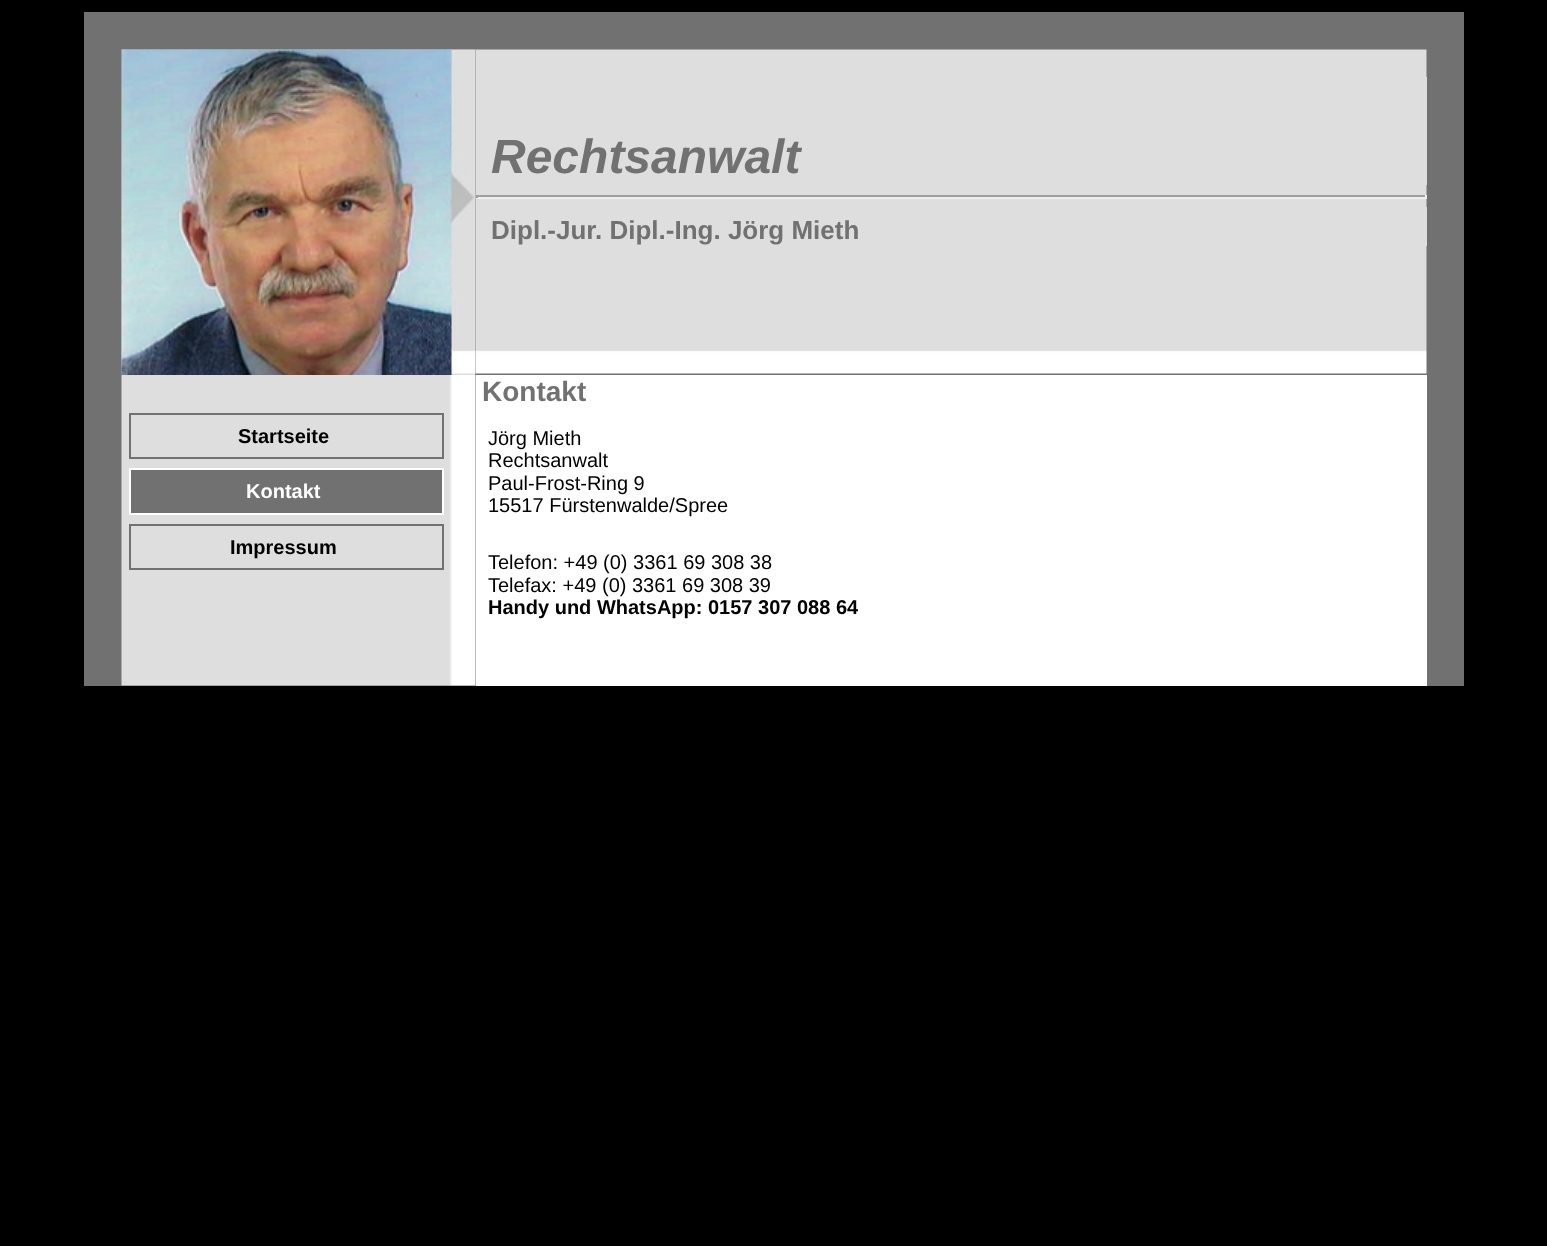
<svg xmlns="http://www.w3.org/2000/svg" width="1547" height="1246">
<rect width="100%" height="100%" fill="#000"/>
<rect x="84" y="12" width="1380" height="674" fill="#717171"/>
<image x="121" y="49" width="355" height="326" href="media/1.png"/>
<image x="121" y="49" width="331" height="326" href="media/2.png"/>
<image x="475" y="49" width="952" height="326" href="media/3.png"/>
<rect x="1426" y="77" width="1" height="108" fill="#dedede"/>
<text x="491" y="173" style="font-family:Liberation Sans;font-size:48px;font-weight:bold;font-style:italic;fill:#717171">Rechtsanwalt</text>
<rect x="476" y="195" width="951" height="2" fill="#9f9f9f"/>
<rect x="1425" y="195" width="2" height="3" fill="#eee"/>
<rect x="476" y="197" width="951" height="2" fill="#eee"/>
<rect x="476" y="195" width="2" height="3" fill="#9f9f9f"/>
<rect x="1426" y="207" width="1" height="39" fill="#dedede"/>
<text x="491" y="239" style="font-family:Liberation Sans;font-size:26px;font-weight:bold;fill:#717171">Dipl.-Jur. Dipl.-Ing. Jörg Mieth</text>
<image x="121" y="375" width="355" height="311" href="media/4.png"/>
<rect x="130" y="414" width="313" height="44" fill="none" stroke="#717171" stroke-width="2"/>
<text x="238" y="443" style="font-family:Liberation Sans;font-size:20px;font-weight:bold;fill:#000">Startseite</text>
<rect x="130" y="469" width="313" height="45" fill="#717171" stroke="#fff" stroke-width="2"/>
<text x="246" y="498" style="font-family:Liberation Sans;font-size:20px;font-weight:bold;fill:#fff">Kontakt</text>
<rect x="130" y="525" width="313" height="44" fill="none" stroke="#717171" stroke-width="2"/>
<text x="230" y="554" style="font-family:Liberation Sans;font-size:20px;font-weight:bold;fill:#000">Impressum</text>
<rect x="476" y="375" width="951" height="311" fill="#fff"/>
<text x="482" y="401" style="font-family:Liberation Sans;font-size:28px;font-weight:bold;fill:#717171">Kontakt</text>
<text x="488" y="445" style="font-family:Liberation Sans;font-size:20px;fill:#000">Jörg Mieth</text>
<text x="488" y="467" style="font-family:Liberation Sans;font-size:20px;fill:#000">Rechtsanwalt</text>
<text x="488" y="490" style="font-family:Liberation Sans;font-size:20px;fill:#000">Paul-Frost-Ring 9</text>
<text x="488" y="512" style="font-family:Liberation Sans;font-size:20px;fill:#000">15517 Fürstenwalde/Spree</text>
<text x="488" y="569" style="font-family:Liberation Sans;font-size:20px;fill:#000">Telefon: +49 (0) 3361 69 308 38</text>
<text x="488" y="592" style="font-family:Liberation Sans;font-size:20px;fill:#000">Telefax: +49 (0) 3361 69 308 39</text>
<text x="488" y="614" style="font-family:Liberation Sans;font-size:20px;font-weight:bold;fill:#000">Handy und WhatsApp: 0157 307 088 64</text>
</svg>
